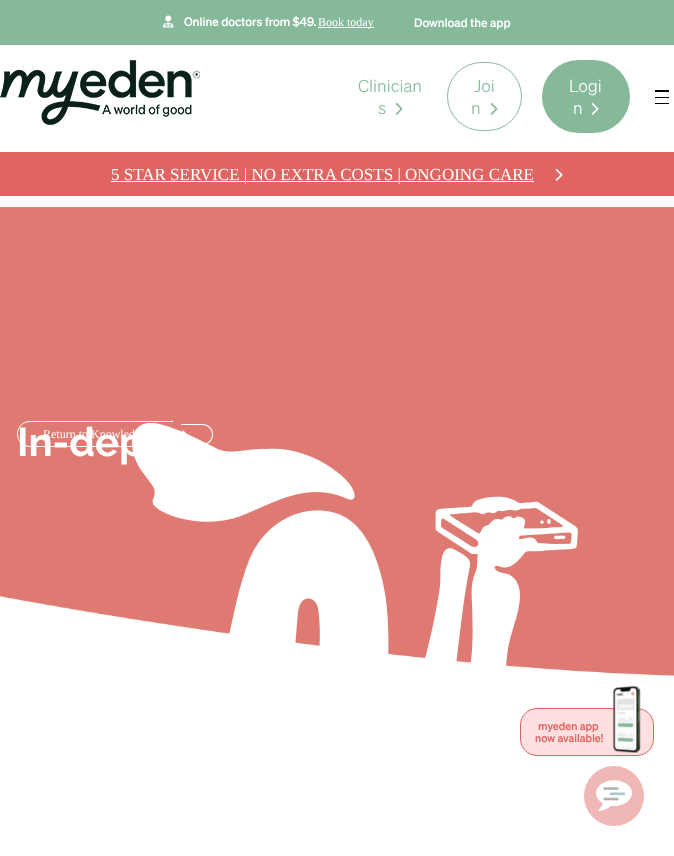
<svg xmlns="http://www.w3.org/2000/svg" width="674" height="856">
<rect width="100%" height="100%" fill="#fff"/>
<rect width="674" height="45" fill="#86b99a"/>
<image x="163" y="15" width="11" height="13" href="media/1.png"/>
<text x="184" y="26" style="font-family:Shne;font-size:12px;font-weight:500;fill:#fff">Online doctors from $49.</text>
<rect x="318" y="27" width="56" height="1" fill="#fff"/>
<text x="318" y="26" style="font-family:Liberation Serif;font-size:12px;fill:#fff">Book today</text>
<text x="414" y="27" style="font-family:Shne;font-size:12px;font-weight:500;fill:#fff">Download the app</text>
<image x="0" y="60" width="200" height="65" href="media/2.png"/>
<text x="358" y="92" style="font-family:Shne;font-size:17px;font-weight:300;fill:#86b99a">Clinician</text>
<text x="378" y="114" style="font-family:Shne;font-size:17px;font-weight:300;fill:#86b99a">s</text>
<image x="395" y="103" width="8" height="12" href="media/3.png"/>
<rect x="447.5" y="62.5" width="74" height="68" rx="34" fill="none" stroke="#86b99a"/>
<text x="474" y="92" style="font-family:Shne;font-size:17px;font-weight:300;fill:#86b99a">Joi</text>
<text x="471" y="114" style="font-family:Shne;font-size:17px;font-weight:300;fill:#86b99a">n</text>
<image x="490" y="103" width="8" height="12" href="media/3.png"/>
<rect x="542" y="60" width="88" height="73" rx="36.5" fill="#86b99a"/>
<text x="569" y="92" style="font-family:Shne;font-size:17px;font-weight:300;fill:#fff">Logi</text>
<text x="573" y="114" style="font-family:Shne;font-size:17px;font-weight:300;fill:#fff">n</text>
<image x="591" y="103" width="8" height="12" href="media/4.png"/>
<rect x="655" y="90" width="14" height="2" fill="#000"/>
<rect x="655" y="97" width="14" height="1" fill="#000"/>
<rect x="655" y="103" width="14" height="1" fill="#000"/>
<rect y="152" width="674" height="44" fill="#e06562"/>
<rect x="111" y="181" width="423" height="1" fill="#fff"/>
<text x="111" y="180" style="font-family:Liberation Serif;font-size:17px;fill:#fff">5 STAR SERVICE | NO EXTRA COSTS | ONGOING CARE</text>
<image x="555" y="169" width="8" height="12" href="media/5.png"/>
<image x="0" y="207" width="674" height="469" href="media/6.png"/>
<path d="M30 421h143v26h-143c-7 0-13-6-13-13c0-7 6-13 13-13zm0 1h143v24h-143c-7 0-12-5-12-12c0-7 5-12 12-12z" fill="#fff" fill-rule="evenodd"/>
<text x="43" y="438" style="font-family:Liberation Serif;font-size:12px;fill:#fff">Return to Knowled</text>
<text x="17" y="456" style="font-family:Raleway;font-size:40px;font-weight:bold;fill:#fff">In-dep</text>
<path d="M181 424h21.5c6 0 10.5 4.5 10.5 10.5c0 6-4.5 10.5-10.5 10.5h-21.5zm0 1h21.5c5 0 9.5 4.5 9.5 9.5c0 5-4.5 9.5-9.5 9.5h-21.5z" fill="#fff" fill-rule="evenodd"/>
<image x="182" y="430" width="5" height="4" href="media/7.png"/>
<image x="132" y="423" width="446" height="243" href="media/8.png"/>
<rect x="520.5" y="708.5" width="133" height="47" rx="16.5" fill="#fde0df" stroke="#e06562"/>
<text x="538" y="730" style="font-family:Shne;font-size:11px;font-weight:500;fill:#e06562">myeden app</text>
<text x="535" y="742" style="font-family:Shne;font-size:11px;font-weight:500;fill:#e06562">now available!</text>
<image x="612" y="686" width="29" height="67" href="media/9.png"/>
<circle cx="614" cy="796" r="30" fill="#efb7b5"/>
<image x="596" y="780" width="36" height="32" href="media/10.png"/>
</svg>
